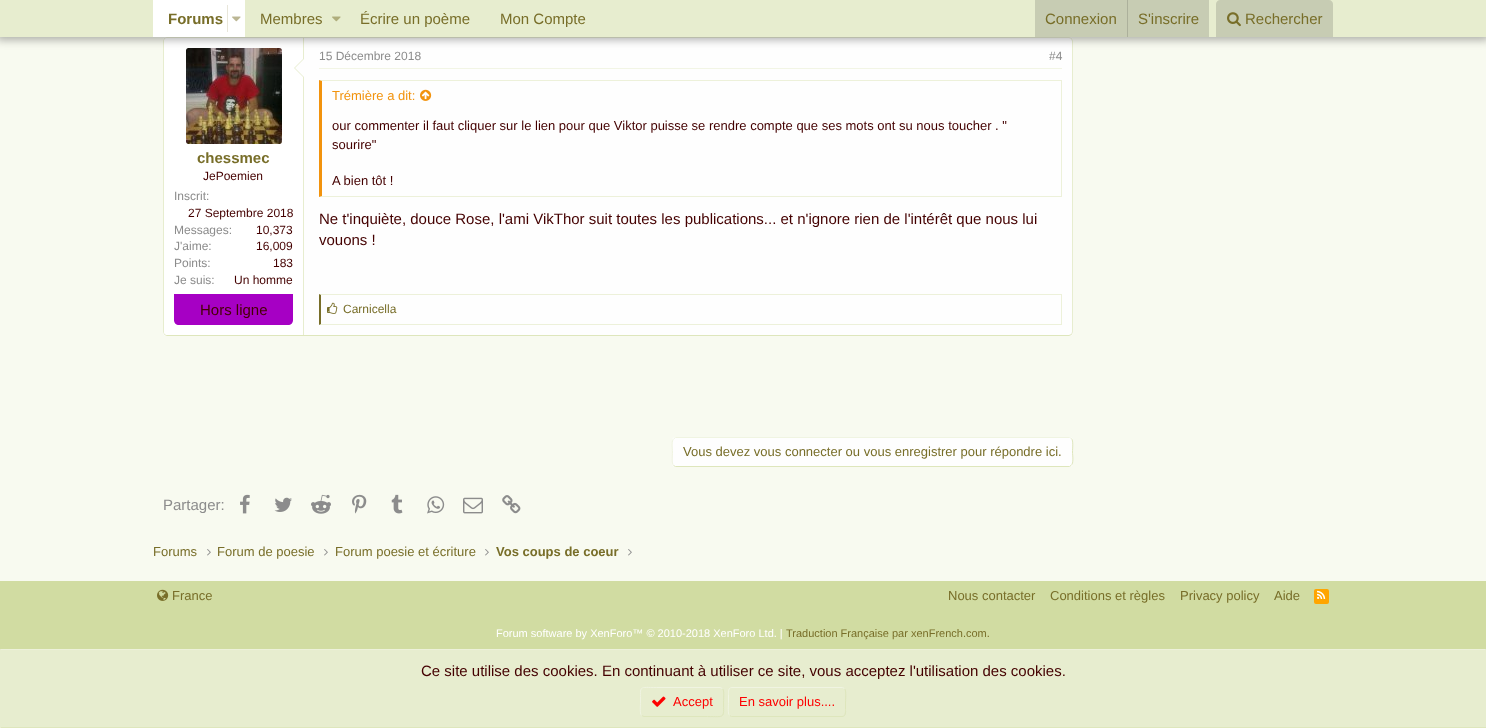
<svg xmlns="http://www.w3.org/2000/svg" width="1486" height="728">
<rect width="100%" height="100%" fill="#f8faf0"/>
<rect x="163" y="37" width="910" height="299" rx="4" fill="#fefefe"/>
<path d="M164.5 38.5l2.5-1h902l2.5 1" fill="none" stroke="#edf1da"/>
<path d="M1071.5 38.5l1 2.5v291l-1 2.5" fill="none" stroke="#e7edcf"/>
<path d="M1071.5 334.5l-2.5 1h-902l-2.5-1" fill="none" stroke="#dee6bc"/>
<path d="M164.5 334.5l-1-2.5v-291l1-2.5" fill="none" stroke="#e7edcf"/>
<path d="M167 38h137v297h-137c-1.5 0-3-1.5-3-3v-291c0-1.5 1.5-3 3-3z" fill="#fff"/>
<rect x="303" y="38" width="1" height="297" fill="#e7edcf"/>
<image x="186" y="48" width="96" height="96" href="media/4.png"/>
<rect x="-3" y="-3" width="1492" height="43" fill="#0000004d" filter="blur(4px)"/>
<rect width="1486" height="37" fill="#e7edcf"/>
<rect x="153" width="92" height="37" fill="#fff"/>
<text x="168" y="24" style="font-family:Liberation Sans;font-size:15px;font-weight:bold;fill:#786e29">Forums</text>
<rect x="227" y="5" width="1" height="27" fill="#e8e6da"/>
<image x="232" y="16" width="9" height="6" href="media/1.png"/>
<text x="260" y="24" style="font-family:Liberation Sans;font-size:15px;fill:#786e29">Membres</text>
<image x="332" y="16" width="9" height="6" href="media/2.png"/>
<text x="360" y="24" style="font-family:Liberation Sans;font-size:15px;fill:#786e29">Écrire un poème</text>
<text x="500" y="24" style="font-family:Liberation Sans;font-size:15px;fill:#786e29">Mon Compte</text>
<rect x="1035" width="174" height="37" fill="#c7ccb3"/>
<text x="1045" y="24" style="font-family:Liberation Sans;font-size:15px;fill:#786e29">Connexion</text>
<rect x="1127" width="1" height="37" fill="#acb09b"/>
<text x="1138" y="24" style="font-family:Liberation Sans;font-size:15px;fill:#786e29">S'inscrire</text>
<path d="M1220 0h109c2 0 4 2 4 4v33h-117v-33c0-2 2-4 4-4z" fill="#c7ccb3"/>
<image x="1227" y="12" width="14" height="15" href="media/3.png"/>
<text x="1245" y="24" style="font-family:Liberation Sans;font-size:15px;fill:#786e29">Rechercher</text>
<path d="M304 58v20l-10-10z" fill="#e7edcf"/>
<path d="M304 59v18l-9-9z" fill="#fefefe"/>
<text x="197" y="163" style="font-family:Liberation Sans;font-size:15px;font-weight:bold;fill:#786e29">chessmec</text>
<text x="203" y="180" style="font-family:Liberation Sans;font-size:12px;fill:#400">JePoemien</text>
<text x="174" y="200" style="font-family:Liberation Sans;font-size:12px;fill:#8c8c8c">Inscrit:</text>
<text x="188" y="217" style="font-family:Liberation Sans;font-size:12px;fill:#400">27 Septembre 2018</text>
<text x="174" y="234" style="font-family:Liberation Sans;font-size:12px;fill:#8c8c8c">Messages:</text>
<text x="256" y="234" style="font-family:Liberation Sans;font-size:12px;fill:#400">10,373</text>
<text x="174" y="250" style="font-family:Liberation Sans;font-size:12px;fill:#8c8c8c">J'aime:</text>
<text x="256" y="250" style="font-family:Liberation Sans;font-size:12px;fill:#400">16,009</text>
<text x="174" y="267" style="font-family:Liberation Sans;font-size:12px;fill:#8c8c8c">Points:</text>
<text x="273" y="267" style="font-family:Liberation Sans;font-size:12px;fill:#400">183</text>
<text x="174" y="284" style="font-family:Liberation Sans;font-size:12px;fill:#8c8c8c">Je suis:</text>
<text x="234" y="284" style="font-family:Liberation Sans;font-size:12px;fill:#400">Un homme</text>
<path d="M174 294h119v26c0 3-2 5-5 5h-109c-3 0-5-2-5-5z" fill="#a600c4"/>
<text x="200" y="315" style="font-family:Liberation Sans;font-size:15px;fill:#400">Hors ligne</text>
<rect x="319" y="68" width="743" height="1" fill="#f2f5e5"/>
<text x="319" y="60" style="font-family:Liberation Sans;font-size:12px;fill:#8c8c8c">15 Décembre 2018</text>
<text x="1049" y="60" style="font-family:Liberation Sans;font-size:12px;fill:#8c8c8c">#4</text>
<path d="M319 80h743l-1 1h-739z" fill="#edf1da"/>
<rect x="1061" y="80" width="1" height="117" fill="#edf1da"/>
<path d="M1062 197h-743l3-1h739z" fill="#edf1da"/>
<path d="M319 197v-117l3 1v115z" fill="#f2930d"/>
<text x="332" y="100" style="font-family:Liberation Sans;font-size:13px;fill:#f2930d">Trémière a dit:</text>
<image x="420" y="89" width="12" height="12" href="media/5.png"/>
<text x="332" y="130" style="font-family:Liberation Sans;font-size:13px;fill:#400">our commenter il faut cliquer sur le lien pour que Viktor puisse se rendre compte que ses mots ont su nous toucher . "</text>
<text x="332" y="149" style="font-family:Liberation Sans;font-size:13px;fill:#400">sourire"</text>
<text x="332" y="185" style="font-family:Liberation Sans;font-size:13px;fill:#400">A bien tôt !</text>
<text x="319" y="224" style="font-family:Liberation Sans;font-size:15px;fill:#400">Ne t'inquiète, douce Rose, l'ami VikThor suit toutes les publications... et n'ignore rien de l'intérêt que nous lui</text>
<text x="319" y="245" style="font-family:Liberation Sans;font-size:15px;fill:#400">vouons !</text>
<path d="M319 294h743l-1 1h-740z" fill="#edf1da"/>
<rect x="1061" y="294" width="1" height="31" fill="#edf1da"/>
<path d="M1062 325h-743l2-1h740z" fill="#edf1da"/>
<path d="M319 325v-31l2 1v29z" fill="#786e29"/>
<image x="327" y="302" width="11" height="12" href="media/6.png"/>
<text x="343" y="313" style="font-family:Liberation Sans;font-size:12px;fill:#786e29">Carnicella</text>
<rect x="672" y="437" width="401" height="30" rx="4" fill="#fefefe"/>
<path d="M1071.5 438.5c2 2 1 10.5 1 13.5c0 3 1.5 11.5-1.5 13.5l-1.5 1h-394l-2-1" fill="none" stroke="#dee6bc"/>
<path d="M673.5 465.5c-2-2-1-10.5-1-13.5c0-3-1.5-11.5 1.5-13.5l1.5-1h394l2 1" fill="none" stroke="#f0f4e2"/>
<text x="683" y="456" style="font-family:Liberation Sans;font-size:13px;fill:#786e29">Vous devez vous connecter ou vous enregistrer pour répondre ici.</text>
<text x="163" y="510" style="font-family:Liberation Sans;font-size:15px;fill:#8c8c8c">Partager:</text>
<image x="240" y="494" width="10" height="20" href="media/7.png"/>
<image x="274" y="497" width="18" height="15" href="media/8.png"/>
<image x="311" y="494" width="20" height="20" href="media/9.png"/>
<image x="352" y="494" width="15" height="20" href="media/10.png"/>
<image x="391" y="494" width="12" height="20" href="media/11.png"/>
<image x="427" y="496" width="18" height="18" href="media/12.png"/>
<image x="463" y="497" width="20" height="17" href="media/13.png"/>
<image x="502" y="495" width="19" height="19" href="media/14.png"/>
<text x="153" y="556" style="font-family:Liberation Sans;font-size:13px;fill:#786e29">Forums</text>
<image x="207" y="549" width="4" height="7" href="media/15.png"/>
<text x="217" y="556" style="font-family:Liberation Sans;font-size:13px;fill:#786e29">Forum de poesie</text>
<image x="324" y="549" width="4" height="7" href="media/15.png"/>
<text x="335" y="556" style="font-family:Liberation Sans;font-size:13px;fill:#786e29">Forum poesie et écriture</text>
<image x="485" y="549" width="4" height="7" href="media/15.png"/>
<text x="496" y="556" style="font-family:Liberation Sans;font-size:13px;font-weight:bold;fill:#786e29">Vos coups de coeur</text>
<image x="628" y="549" width="4" height="7" href="media/15.png"/>
<rect y="581" width="1486" height="68" fill="#d1dca2"/>
<image x="157" y="589" width="12" height="12" href="media/16.png"/>
<text x="172" y="600" style="font-family:Liberation Sans;font-size:13px;fill:#786e29">France</text>
<text x="948" y="600" style="font-family:Liberation Sans;font-size:13px;fill:#786e29">Nous contacter</text>
<text x="1050" y="600" style="font-family:Liberation Sans;font-size:13px;fill:#786e29">Conditions et règles</text>
<text x="1180" y="600" style="font-family:Liberation Sans;font-size:13px;fill:#786e29">Privacy policy</text>
<text x="1274" y="600" style="font-family:Liberation Sans;font-size:13px;fill:#786e29">Aide</text>
<rect x="1314" y="589" width="15" height="15" rx="2" fill="#ffa500"/>
<image x="1317" y="590" width="9" height="9" href="media/17.png"/>
<text x="496" y="637" style="font-family:Liberation Sans;font-size:11px;fill:#fff">Forum software by XenForo™ © 2010-2018 XenForo Ltd. |</text>
<text x="786" y="637" style="font-family:Liberation Sans;font-size:11px;fill:#786e29">Traduction Française par xenFrench.com.</text>
<rect x="1" y="650" width="1484" height="77" fill="#e7edcf"/>
<rect y="649" width="1486" height="1" fill="#edf1da"/>
<rect x="1485" y="649" width="1" height="79" fill="#e7edcf"/>
<rect y="727" width="1486" height="1" fill="#dee6bc"/>
<rect y="649" width="1" height="79" fill="#e7edcf"/>
<text x="421" y="676" style="font-family:Liberation Sans;font-size:15px;fill:#400">Ce site utilise des cookies. En continuant à utiliser ce site, vous acceptez l'utilisation des cookies.</text>
<path d="M722.5 688.5c2 2 1 10.5 1 13.5c0 17 2 14.5-16 14.5h-63.5l-2.5-1" fill="none" stroke="#dee6bc"/>
<path d="M641.5 715.5c-2-2-1-10.5-1-13.5c0-17-2-14.5 16-14.5h63.5l2.5 1" fill="none" stroke="#f0f4e2"/>
<image x="652" y="696" width="14" height="11" href="media/18.png"/>
<text x="673" y="706" style="font-family:Liberation Sans;font-size:13px;fill:#fd0202">Accept</text>
<path d="M844.5 688.5c2 2 1 10.5 1 13.5v7.5c0 2.5 .5 7-3.5 7h-110.5l-2-1" fill="none" stroke="#dee6bc"/>
<path d="M729.5 715.5c-2-2-1-10.5-1-13.5v-7.5c0-2.5-.5-7 3.5-7h110.5l2 1" fill="none" stroke="#f0f4e2"/>
<text x="739" y="706" style="font-family:Liberation Sans;font-size:13px;fill:#fd0202">En savoir plus....</text>
</svg>
